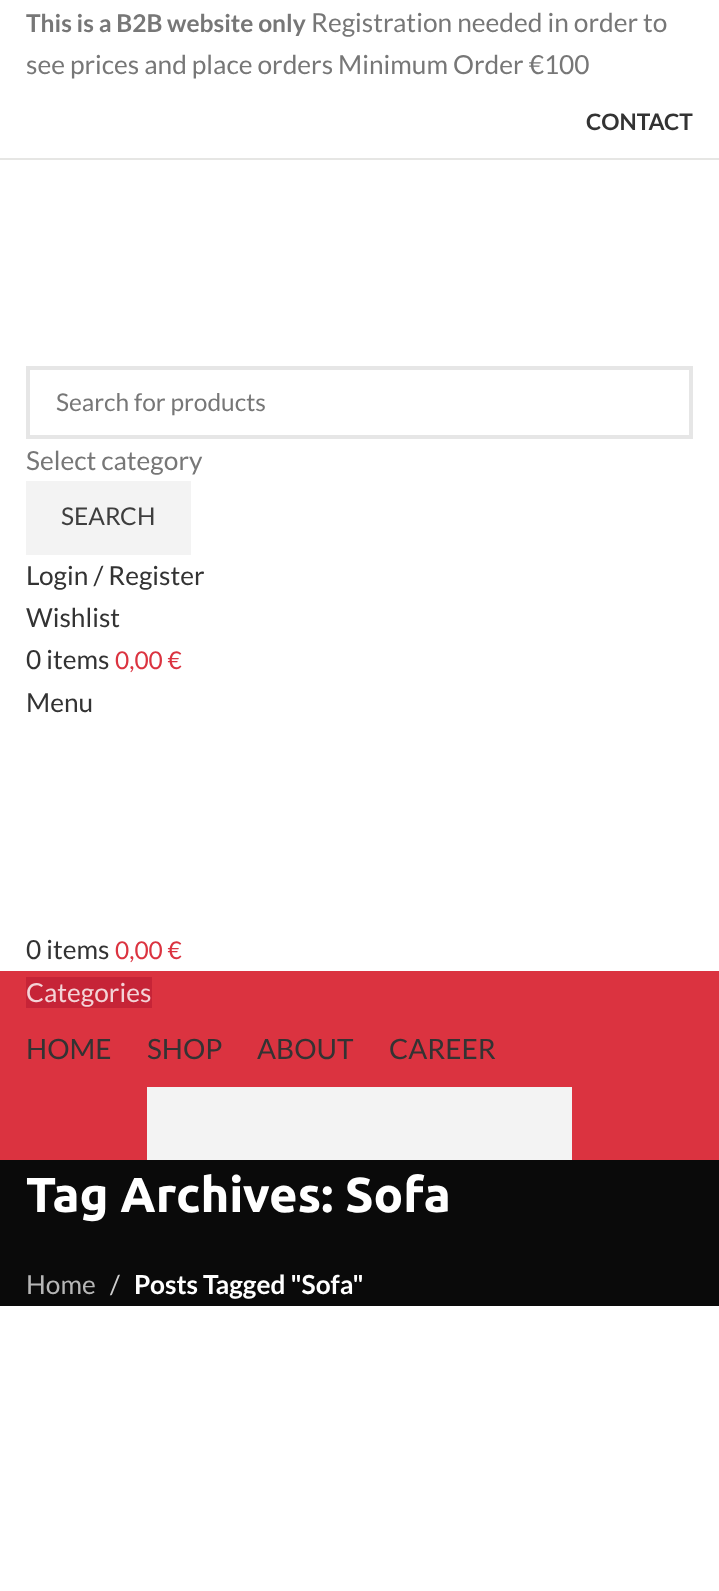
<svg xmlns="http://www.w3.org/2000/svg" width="719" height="1591">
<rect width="100%" height="100%" fill="#fff"/>
<rect y="158" width="719" height="2" fill="#e6e6e4"/>
<text x="26" y="32" style="font-family:Lato;font-size:24.5px;font-weight:bold;fill:#777">This is a B2B website only</text>
<text x="311" y="32" style="font-family:Lato;font-size:26.25px;fill:#777">Registration needed in order to</text>
<text x="26" y="74" style="font-family:Lato;font-size:26.25px;fill:#777">see prices and place orders Minimum Order €100</text>
<text x="586" y="130" style="font-family:Lato;font-size:22.75px;font-weight:bold;fill:#333">CONTACT</text>
<rect x="28" y="368" width="663" height="69" fill="none" stroke="#e6e6e6" stroke-width="4"/>
<text x="56" y="411" style="font-family:Lato;font-size:24.5px;fill:#777">Search for products</text>
<text x="26" y="470" style="font-family:Lato;font-size:26.25px;fill:#777">Select category</text>
<rect x="26" y="481" width="165" height="74" fill="#f3f3f3"/>
<text x="61" y="525" style="font-family:Lato;font-size:24.5px;fill:#3e3e3e">SEARCH</text>
<text x="26" y="585" style="font-family:Lato;font-size:26.25px;fill:#333">Login / Register</text>
<text x="26" y="627" style="font-family:Lato;font-size:26.25px;fill:#333">Wishlist</text>
<text x="26" y="669" style="font-family:Lato;font-size:26.25px;fill:#333">0 items</text>
<text x="115" y="669" style="font-family:Lato;font-size:24.5px;fill:#db3340">0,00 €</text>
<text x="26" y="712" style="font-family:Lato;font-size:26.25px;fill:#333">Menu</text>
<text x="26" y="959" style="font-family:Lato;font-size:26.25px;fill:#333">0 items</text>
<text x="115" y="959" style="font-family:Lato;font-size:24.5px;fill:#db3340">0,00 €</text>
<rect y="971" width="719" height="189" fill="#db3340"/>
<rect x="26" y="977" width="126" height="31" fill="#c62437"/>
<text x="26" y="1002" style="font-family:Lato;font-size:26.25px;fill:#f4d3d7">Categories</text>
<text x="26" y="1059" style="font-family:Lato;font-size:28px;fill:#333">HOME</text>
<text x="147" y="1059" style="font-family:Lato;font-size:28px;fill:#333">SHOP</text>
<text x="257" y="1059" style="font-family:Lato;font-size:28px;fill:#333">ABOUT</text>
<text x="389" y="1059" style="font-family:Lato;font-size:28px;fill:#333">CAREER</text>
<rect x="147" y="1087" width="425" height="73" fill="#f3f3f3"/>
<rect y="1160" width="719" height="146" fill="#0a0a0a"/>
<text x="26" y="1212" style="font-family:Ubuntu;font-size:49px;font-weight:bold;fill:#fff">Tag Archives: Sofa</text>
<text x="26" y="1294" style="font-family:Lato;font-size:26.25px;fill:#b6b6b6">Home</text>
<text x="110" y="1294" style="font-family:Lato;font-size:26.25px;fill:#cecece">/</text>
<text x="134" y="1294" style="font-family:Lato;font-size:26.25px;font-weight:bold;fill:#fff">Posts Tagged "Sofa"</text>
</svg>
